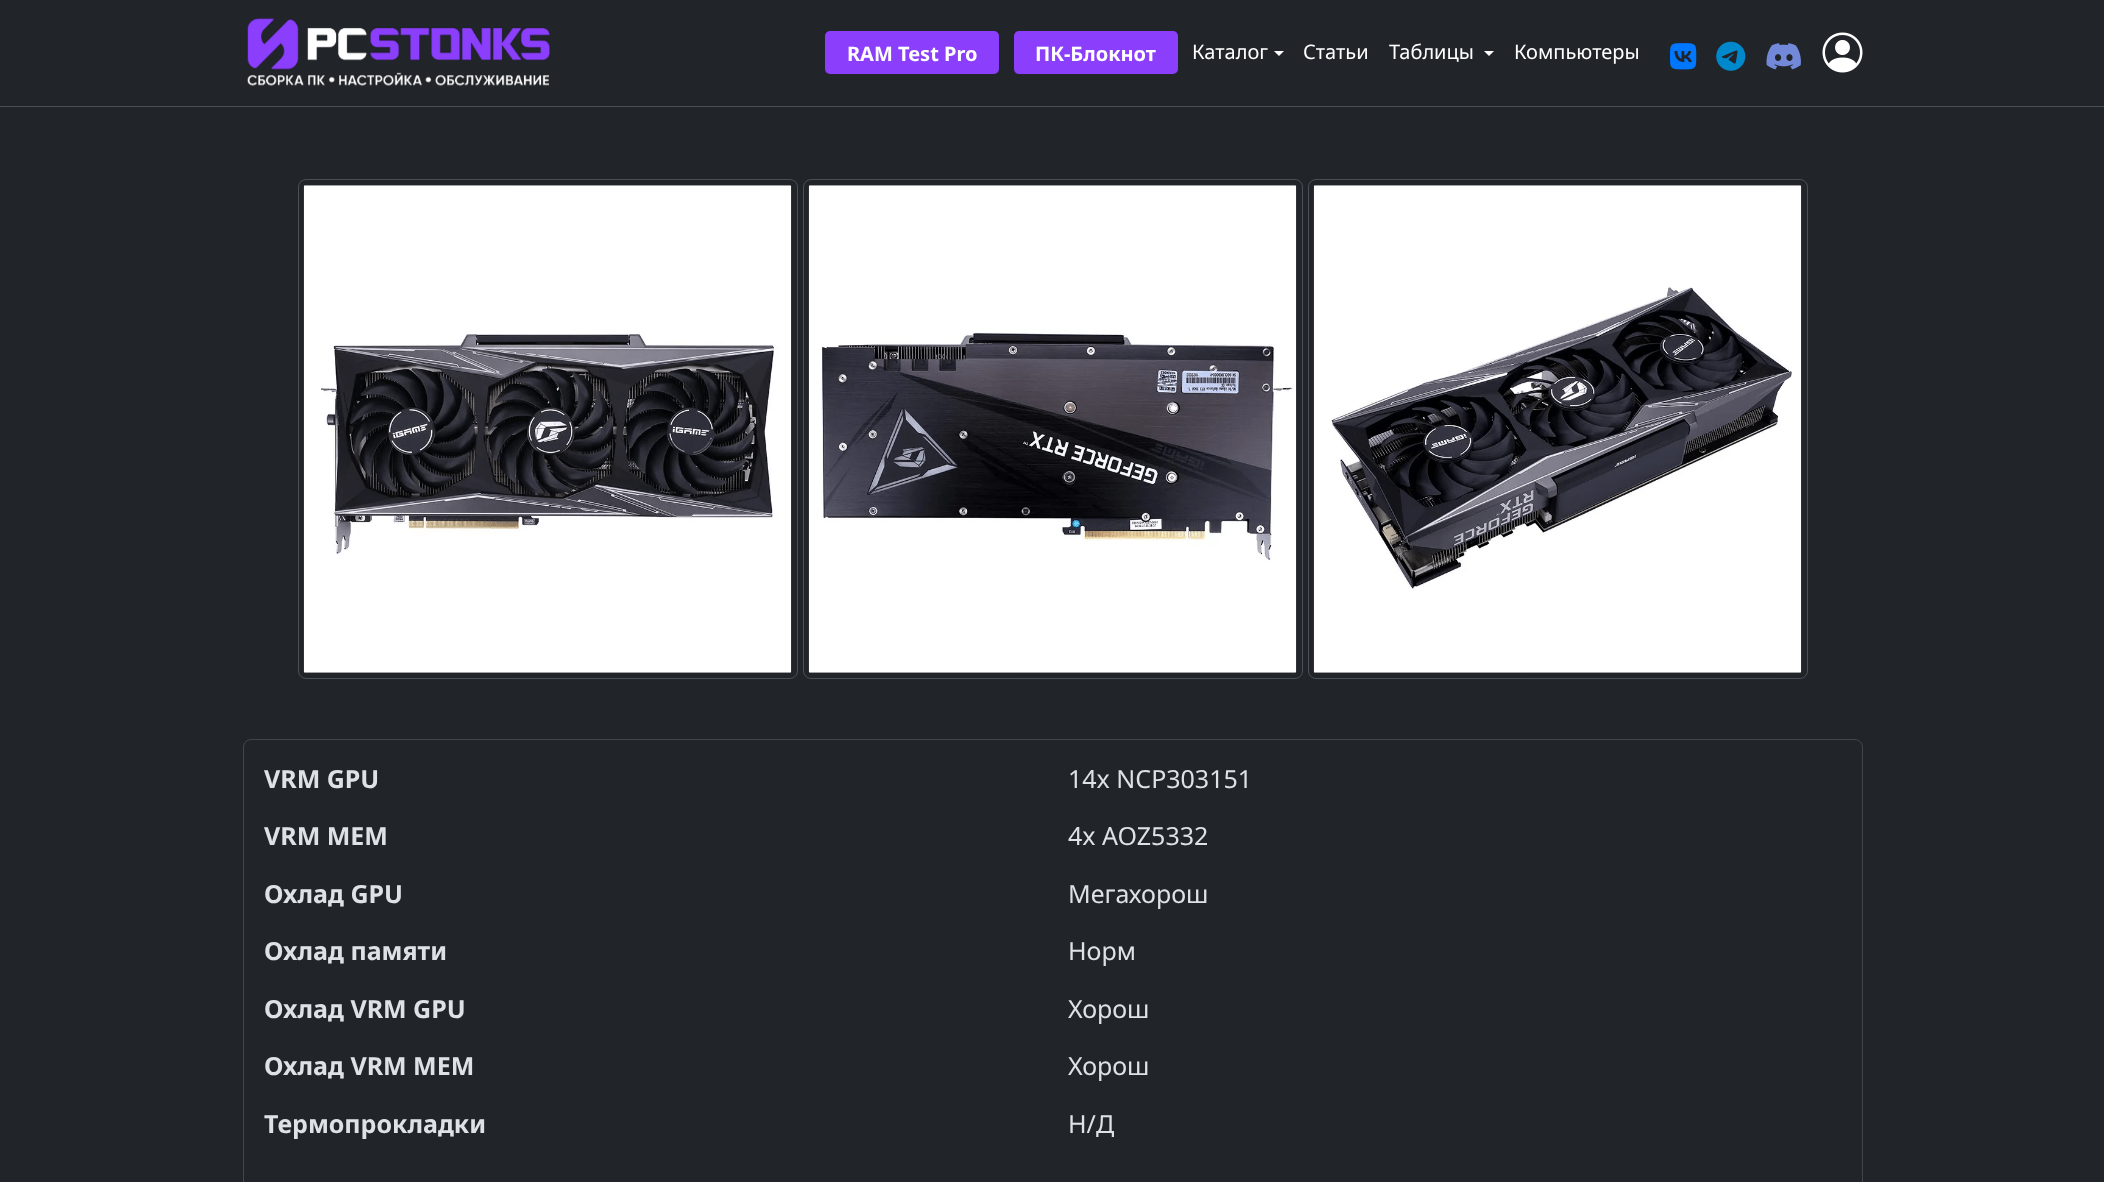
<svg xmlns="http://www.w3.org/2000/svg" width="2104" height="1182">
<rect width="100%" height="100%" fill="#212529"/>
<rect y="106" width="2104" height="1" fill="#495057"/>
<image x="247" y="18" width="303" height="68" href="media/1.png"/>
<rect x="825" y="31" width="174" height="43" rx="5" fill="#8b3ffd"/>
<text x="847" y="61" style="font-family:Noto Sans;font-size:20px;font-weight:bold;fill:#fff">RAM Test Pro</text>
<rect x="1014" y="31" width="164" height="43" rx="5" fill="#8b3ffd"/>
<text x="1035" y="61" style="font-family:Noto Sans;font-size:20px;font-weight:bold;fill:#fff">ПК-Блокнот</text>
<text x="1192" y="59" style="font-family:Noto Sans;font-size:20px;fill:#fff">Каталог</text>
<path d="M1274 51h10l-5 5z" fill="#fff"/>
<text x="1303" y="59" style="font-family:Noto Sans;font-size:20px;fill:#fff">Статьи</text>
<text x="1389" y="59" style="font-family:Noto Sans;font-size:20px;fill:#fff">Таблицы</text>
<path d="M1484 51h10l-5 5z" fill="#fff"/>
<text x="1514" y="59" style="font-family:Noto Sans;font-size:20px;fill:#fff">Компьютеры</text>
<image x="1670" y="43" width="27" height="27" href="media/2.png"/>
<image x="1716" y="41" width="30" height="30" href="media/3.png"/>
<image x="1766" y="43" width="35" height="27" href="media/4.png"/>
<image x="1822" y="32" width="41" height="41" href="media/5.png"/>
<rect x="298.5" y="179.5" width="499" height="499" rx="7.5" fill="none" stroke="#495057"/>
<rect x="803.5" y="179.5" width="499" height="499" rx="7.5" fill="none" stroke="#495057"/>
<rect x="1308.5" y="179.5" width="499" height="499" rx="7.5" fill="none" stroke="#495057"/>
<image x="303" y="185" width="489" height="488" href="media/6.png"/>
<image x="808" y="185" width="489" height="488" href="media/7.png"/>
<image x="1313" y="185" width="489" height="488" href="media/8.png"/>
<rect x="243.5" y="739.5" width="1619" height="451" rx="7.5" fill="none" stroke="#424649"/>
<text x="264" y="788" style="font-family:Noto Sans;font-size:25px;font-weight:bold;fill:#dee2e6">VRM GPU</text>
<text x="1068" y="788" style="font-family:Noto Sans;font-size:25px;fill:#dee2e6">14x NCP303151</text>
<text x="264" y="845" style="font-family:Noto Sans;font-size:25px;font-weight:bold;fill:#dee2e6">VRM MEM</text>
<text x="1068" y="845" style="font-family:Noto Sans;font-size:25px;fill:#dee2e6">4x AOZ5332</text>
<text x="264" y="903" style="font-family:Noto Sans;font-size:25px;font-weight:bold;fill:#dee2e6">Охлад GPU</text>
<text x="1068" y="903" style="font-family:Noto Sans;font-size:25px;fill:#dee2e6">Мегахорош</text>
<text x="264" y="960" style="font-family:Noto Sans;font-size:25px;font-weight:bold;fill:#dee2e6">Охлад памяти</text>
<text x="1068" y="960" style="font-family:Noto Sans;font-size:25px;fill:#dee2e6">Норм</text>
<text x="264" y="1018" style="font-family:Noto Sans;font-size:25px;font-weight:bold;fill:#dee2e6">Охлад VRM GPU</text>
<text x="1068" y="1018" style="font-family:Noto Sans;font-size:25px;fill:#dee2e6">Хорош</text>
<text x="264" y="1075" style="font-family:Noto Sans;font-size:25px;font-weight:bold;fill:#dee2e6">Охлад VRM MEM</text>
<text x="1068" y="1075" style="font-family:Noto Sans;font-size:25px;fill:#dee2e6">Хорош</text>
<text x="264" y="1133" style="font-family:Noto Sans;font-size:25px;font-weight:bold;fill:#dee2e6">Термопрокладки</text>
<text x="1068" y="1133" style="font-family:Noto Sans;font-size:25px;fill:#dee2e6">Н/Д</text>
</svg>
